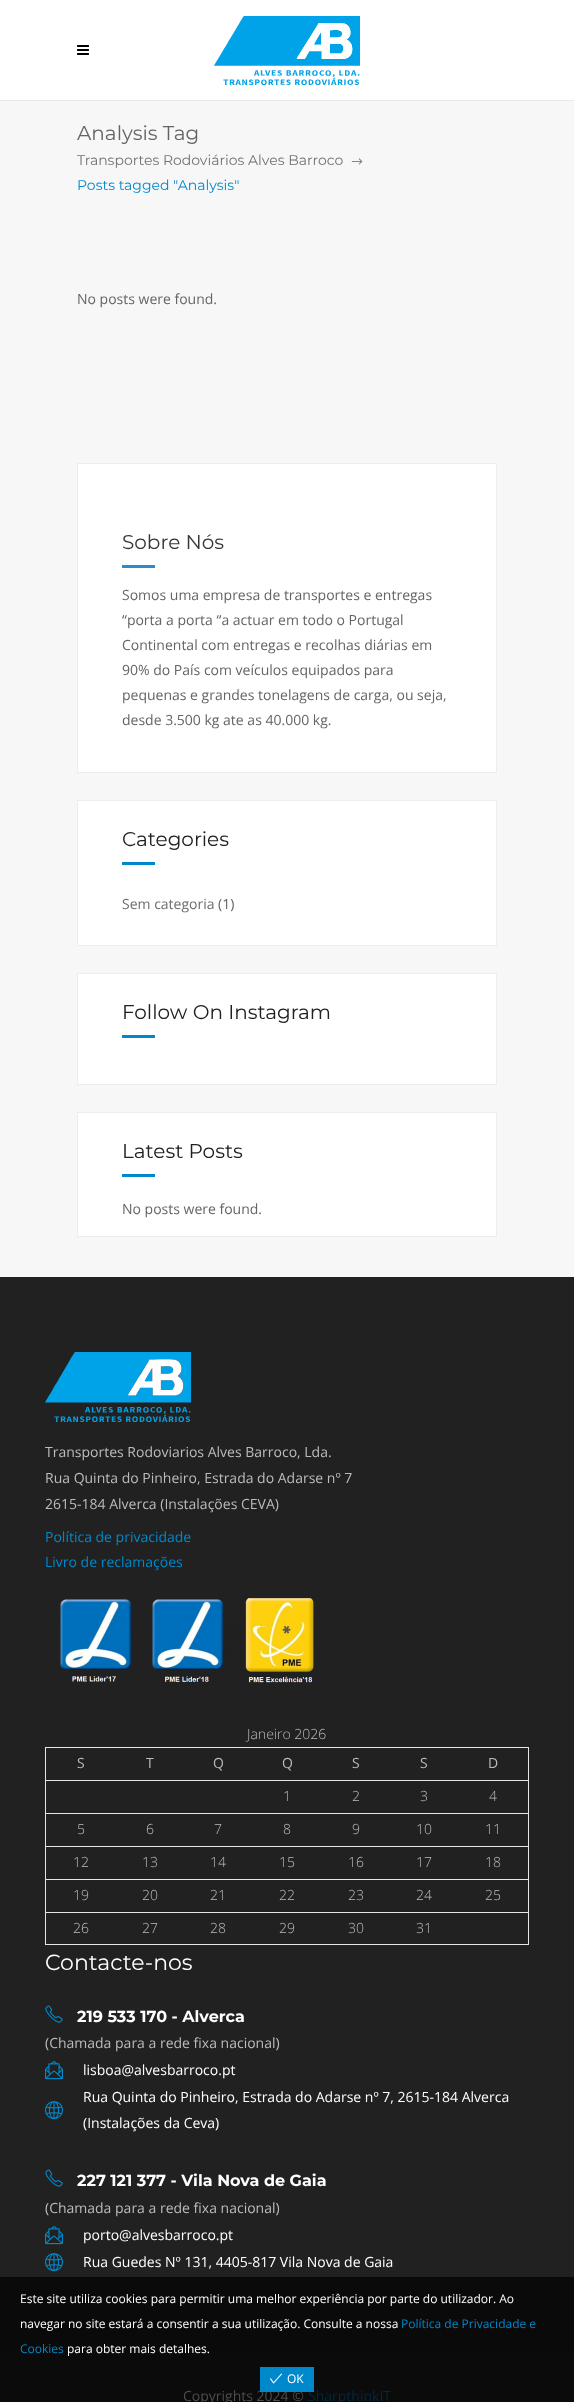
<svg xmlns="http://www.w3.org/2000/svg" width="574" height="2402">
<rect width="100%" height="100%" fill="#f7f7f7"/>
<rect y="100" width="574" height="1" fill="#e9e9e8"/>
<rect width="574" height="100" fill="#fff"/>
<image x="77" y="45" width="12" height="10" href="media/1.png"/>
<image x="214" y="16" width="146" height="69" href="media/2.png"/>
<text x="77" y="140" style="font-family:Montserrat;font-size:20px;fill:#646464">Analysis Tag</text>
<text x="77" y="165" style="font-family:Montserrat;font-size:14px;fill:#727272">Transportes Rodoviários Alves Barroco</text>
<image x="351" y="158" width="12" height="7" href="media/3.png"/>
<text x="77" y="190" style="font-family:Montserrat;font-size:14px;fill:#08c">Posts tagged "Analysis"</text>
<text x="77" y="304" style="font-family:Open Sans;font-size:14px;fill:#646464">No posts were found.</text>
<rect x="77.5" y="463.5" width="419" height="309" fill="#fff" stroke="#ededed"/>
<text x="122" y="549" style="font-family:Montserrat;font-size:20px;fill:#363636">Sobre Nós</text>
<rect x="122" y="565" width="33" height="3" fill="#2e89ce"/>
<text x="122" y="600" style="font-family:Open Sans;font-size:14px;fill:#646464">Somos uma empresa de transportes e entregas</text>
<text x="122" y="625" style="font-family:Open Sans;font-size:14px;fill:#646464">“porta a porta “a actuar em todo o Portugal</text>
<text x="122" y="650" style="font-family:Open Sans;font-size:14px;fill:#646464">Continental com entregas e recolhas diárias em</text>
<text x="122" y="675" style="font-family:Open Sans;font-size:14px;fill:#646464">90% do País com veículos equipados para</text>
<text x="122" y="700" style="font-family:Open Sans;font-size:14px;fill:#646464">pequenas e grandes tonelagens de carga, ou seja,</text>
<text x="122" y="725" style="font-family:Open Sans;font-size:14px;fill:#646464">desde 3.500 kg ate as 40.000 kg.</text>
<rect x="77.5" y="800.5" width="419" height="145" fill="#fff" stroke="#ededed"/>
<text x="122" y="846" style="font-family:Montserrat;font-size:20px;fill:#202020">Categories</text>
<rect x="122" y="862" width="33" height="3" fill="#08c"/>
<text x="122" y="909" style="font-family:Open Sans;font-size:14px;fill:#6c6c6c">Sem categoria</text>
<text x="218" y="909" style="font-family:Open Sans;font-size:14px;fill:#646464">(1)</text>
<rect x="77.5" y="973.5" width="419" height="111" fill="#fff" stroke="#ededed"/>
<text x="122" y="1019" style="font-family:Montserrat;font-size:20px;fill:#202020">Follow On Instagram</text>
<rect x="122" y="1035" width="33" height="3" fill="#08c"/>
<rect x="77.5" y="1112.5" width="419" height="124" fill="#fff" stroke="#ededed"/>
<text x="122" y="1158" style="font-family:Montserrat;font-size:20px;fill:#202020">Latest Posts</text>
<rect x="122" y="1174" width="33" height="3" fill="#08c"/>
<text x="122" y="1214" style="font-family:Open Sans;font-size:14px;fill:#646464">No posts were found.</text>
<rect y="1277" width="574" height="1000" fill="#212121"/>
<rect y="2277" width="574" height="73" fill="#0a0a0a"/>
<image x="45" y="1352" width="146" height="70" href="media/4.png"/>
<text x="45" y="1457" style="font-family:Open Sans;font-size:14px;fill:#bcbcbc">Transportes Rodoviarios Alves Barroco, Lda.</text>
<text x="45" y="1483" style="font-family:Open Sans;font-size:14px;fill:#bcbcbc">Rua Quinta do Pinheiro, Estrada do Adarse nº 7</text>
<text x="45" y="1509" style="font-family:Open Sans;font-size:14px;fill:#bcbcbc">2615-184 Alverca (Instalações CEVA)</text>
<text x="45" y="1542" style="font-family:Open Sans;font-size:14px;fill:#08c">Política de privacidade</text>
<text x="45" y="1567" style="font-family:Open Sans;font-size:14px;fill:#08c">Livro de reclamações</text>
<image x="60" y="1598" width="254" height="85" href="media/5.png"/>
<text x="247" y="1739" style="font-family:Open Sans;font-size:14px;font-weight:300;fill:#bcbcbc">Janeiro 2026</text>
<rect x="45" y="1747" width="484" height="1" fill="#e6e6e6"/>
<rect x="45" y="1780" width="484" height="1" fill="#e6e6e6"/>
<rect x="45" y="1813" width="484" height="1" fill="#e6e6e6"/>
<rect x="45" y="1846" width="484" height="1" fill="#e6e6e6"/>
<rect x="45" y="1879" width="484" height="1" fill="#e6e6e6"/>
<rect x="45" y="1912" width="484" height="1" fill="#e6e6e6"/>
<rect x="528" y="1912" width="1" height="33" fill="#e6e6e6"/>
<rect x="528" y="1879" width="1" height="34" fill="#e6e6e6"/>
<rect x="528" y="1846" width="1" height="34" fill="#e6e6e6"/>
<rect x="528" y="1813" width="1" height="34" fill="#e6e6e6"/>
<rect x="528" y="1780" width="1" height="34" fill="#e6e6e6"/>
<rect x="528" y="1747" width="1" height="34" fill="#e6e6e6"/>
<rect x="45" y="1944" width="484" height="1" fill="#e6e6e6"/>
<rect x="45" y="1912" width="1" height="33" fill="#e6e6e6"/>
<rect x="45" y="1879" width="1" height="34" fill="#e6e6e6"/>
<rect x="45" y="1846" width="1" height="34" fill="#e6e6e6"/>
<rect x="45" y="1813" width="1" height="34" fill="#e6e6e6"/>
<rect x="45" y="1780" width="1" height="34" fill="#e6e6e6"/>
<rect x="45" y="1747" width="1" height="34" fill="#e6e6e6"/>
<text x="77" y="1768" style="font-family:Open Sans;font-size:14px;fill:#bcbcbc">S</text>
<text x="146" y="1768" style="font-family:Open Sans;font-size:14px;fill:#bcbcbc">T</text>
<text x="213" y="1768" style="font-family:Open Sans;font-size:14px;fill:#bcbcbc">Q</text>
<text x="282" y="1768" style="font-family:Open Sans;font-size:14px;fill:#bcbcbc">Q</text>
<text x="352" y="1768" style="font-family:Open Sans;font-size:14px;fill:#bcbcbc">S</text>
<text x="420" y="1768" style="font-family:Open Sans;font-size:14px;fill:#bcbcbc">S</text>
<text x="488" y="1768" style="font-family:Open Sans;font-size:14px;fill:#bcbcbc">D</text>
<text x="283" y="1801" style="font-family:Open Sans;font-size:14px;font-weight:300;fill:#bcbcbc">1</text>
<text x="352" y="1801" style="font-family:Open Sans;font-size:14px;font-weight:300;fill:#bcbcbc">2</text>
<text x="420" y="1801" style="font-family:Open Sans;font-size:14px;font-weight:300;fill:#bcbcbc">3</text>
<text x="489" y="1801" style="font-family:Open Sans;font-size:14px;font-weight:300;fill:#bcbcbc">4</text>
<text x="77" y="1834" style="font-family:Open Sans;font-size:14px;font-weight:300;fill:#bcbcbc">5</text>
<text x="146" y="1834" style="font-family:Open Sans;font-size:14px;font-weight:300;fill:#bcbcbc">6</text>
<text x="214" y="1834" style="font-family:Open Sans;font-size:14px;font-weight:300;fill:#bcbcbc">7</text>
<text x="283" y="1834" style="font-family:Open Sans;font-size:14px;font-weight:300;fill:#bcbcbc">8</text>
<text x="352" y="1834" style="font-family:Open Sans;font-size:14px;font-weight:300;fill:#bcbcbc">9</text>
<text x="416" y="1834" style="font-family:Open Sans;font-size:14px;font-weight:300;fill:#bcbcbc">10</text>
<text x="485" y="1834" style="font-family:Open Sans;font-size:14px;font-weight:300;fill:#bcbcbc">11</text>
<text x="73" y="1867" style="font-family:Open Sans;font-size:14px;font-weight:300;fill:#bcbcbc">12</text>
<text x="142" y="1867" style="font-family:Open Sans;font-size:14px;font-weight:300;fill:#bcbcbc">13</text>
<text x="210" y="1867" style="font-family:Open Sans;font-size:14px;font-weight:300;fill:#bcbcbc">14</text>
<text x="279" y="1867" style="font-family:Open Sans;font-size:14px;font-weight:300;fill:#bcbcbc">15</text>
<text x="348" y="1867" style="font-family:Open Sans;font-size:14px;font-weight:300;fill:#bcbcbc">16</text>
<text x="416" y="1867" style="font-family:Open Sans;font-size:14px;font-weight:300;fill:#bcbcbc">17</text>
<text x="485" y="1867" style="font-family:Open Sans;font-size:14px;font-weight:300;fill:#bcbcbc">18</text>
<text x="73" y="1900" style="font-family:Open Sans;font-size:14px;font-weight:300;fill:#bcbcbc">19</text>
<text x="142" y="1900" style="font-family:Open Sans;font-size:14px;font-weight:300;fill:#bcbcbc">20</text>
<text x="210" y="1900" style="font-family:Open Sans;font-size:14px;font-weight:300;fill:#bcbcbc">21</text>
<text x="279" y="1900" style="font-family:Open Sans;font-size:14px;font-weight:300;fill:#bcbcbc">22</text>
<text x="348" y="1900" style="font-family:Open Sans;font-size:14px;font-weight:300;fill:#bcbcbc">23</text>
<text x="416" y="1900" style="font-family:Open Sans;font-size:14px;font-weight:300;fill:#bcbcbc">24</text>
<text x="485" y="1900" style="font-family:Open Sans;font-size:14px;font-weight:300;fill:#bcbcbc">25</text>
<text x="73" y="1933" style="font-family:Open Sans;font-size:14px;font-weight:300;fill:#bcbcbc">26</text>
<text x="142" y="1933" style="font-family:Open Sans;font-size:14px;font-weight:300;fill:#bcbcbc">27</text>
<text x="210" y="1933" style="font-family:Open Sans;font-size:14px;font-weight:300;fill:#bcbcbc">28</text>
<text x="279" y="1933" style="font-family:Open Sans;font-size:14px;font-weight:300;fill:#bcbcbc">29</text>
<text x="348" y="1933" style="font-family:Open Sans;font-size:14px;font-weight:300;fill:#bcbcbc">30</text>
<text x="416" y="1933" style="font-family:Open Sans;font-size:14px;font-weight:300;fill:#bcbcbc">31</text>
<text x="45" y="1970" style="font-family:Montserrat;font-size:22px;fill:#fff">Contacte-nos</text>
<image x="45" y="2005" width="18" height="18" href="media/6.png"/>
<text x="77" y="2022" style="font-family:Montserrat;font-size:16px;font-weight:bold;fill:#fff">219 533 170 - Alverca</text>
<text x="45" y="2048" style="font-family:Open Sans;font-size:14px;fill:#bcbcbc">(Chamada para a rede fixa nacional)</text>
<image x="45" y="2061" width="18" height="19" href="media/7.png"/>
<text x="83" y="2075" style="font-family:Open Sans;font-size:14px;fill:#fff">lisboa@alvesbarroco.pt</text>
<image x="45" y="2101" width="18" height="19" href="media/8.png"/>
<text x="83" y="2102" style="font-family:Open Sans;font-size:14px;fill:#fff">Rua Quinta do Pinheiro, Estrada do Adarse nº 7, 2615-184 Alverca</text>
<text x="83" y="2128" style="font-family:Open Sans;font-size:14px;fill:#fff">(Instalações da Ceva)</text>
<image x="45" y="2169" width="18" height="18" href="media/6.png"/>
<text x="77" y="2186" style="font-family:Montserrat;font-size:16px;font-weight:bold;fill:#fff">227 121 377 - Vila Nova de Gaia</text>
<text x="45" y="2213" style="font-family:Open Sans;font-size:14px;fill:#bcbcbc">(Chamada para a rede fixa nacional)</text>
<image x="45" y="2226" width="18" height="19" href="media/7.png"/>
<text x="83" y="2240" style="font-family:Open Sans;font-size:14px;fill:#fff">porto@alvesbarroco.pt</text>
<image x="45" y="2253" width="18" height="19" href="media/8.png"/>
<text x="83" y="2267" style="font-family:Open Sans;font-size:14px;fill:#fff">Rua Guedes Nº 131, 4405-817 Vila Nova de Gaia</text>
<rect y="2350" width="574" height="52" fill="#0b0b0b"/>
<text x="183" y="2401" style="font-family:Open Sans;font-size:14px;fill:#4d4d4d">Copyrights 2024 ©</text>
<text x="308" y="2401" style="font-family:Open Sans;font-size:14px;fill:#00293d">SharpthinkIT</text>
<text x="20" y="2303" style="font-family:Open Sans;font-size:12px;fill:#fff">Este site utiliza cookies para permitir uma melhor experiência por parte do utilizador. Ao</text>
<text x="20" y="2328" style="font-family:Open Sans;font-size:12px;fill:#fff">navegar no site estará a consentir a sua utilização. Consulte a nossa</text>
<text x="401" y="2328" style="font-family:Open Sans;font-size:12px;fill:#08c">Política de Privacidade e</text>
<text x="20" y="2353" style="font-family:Open Sans;font-size:12px;fill:#08c">Cookies</text>
<text x="67" y="2353" style="font-family:Open Sans;font-size:12px;fill:#fff">para obter mais detalhes.</text>
<rect x="260" y="2367" width="54" height="25" fill="#08c"/>
<image x="270" y="2373" width="12" height="11" href="media/9.png"/>
<text x="287" y="2383" style="font-family:Open Sans;font-size:12px;fill:#fff">OK</text>
</svg>
